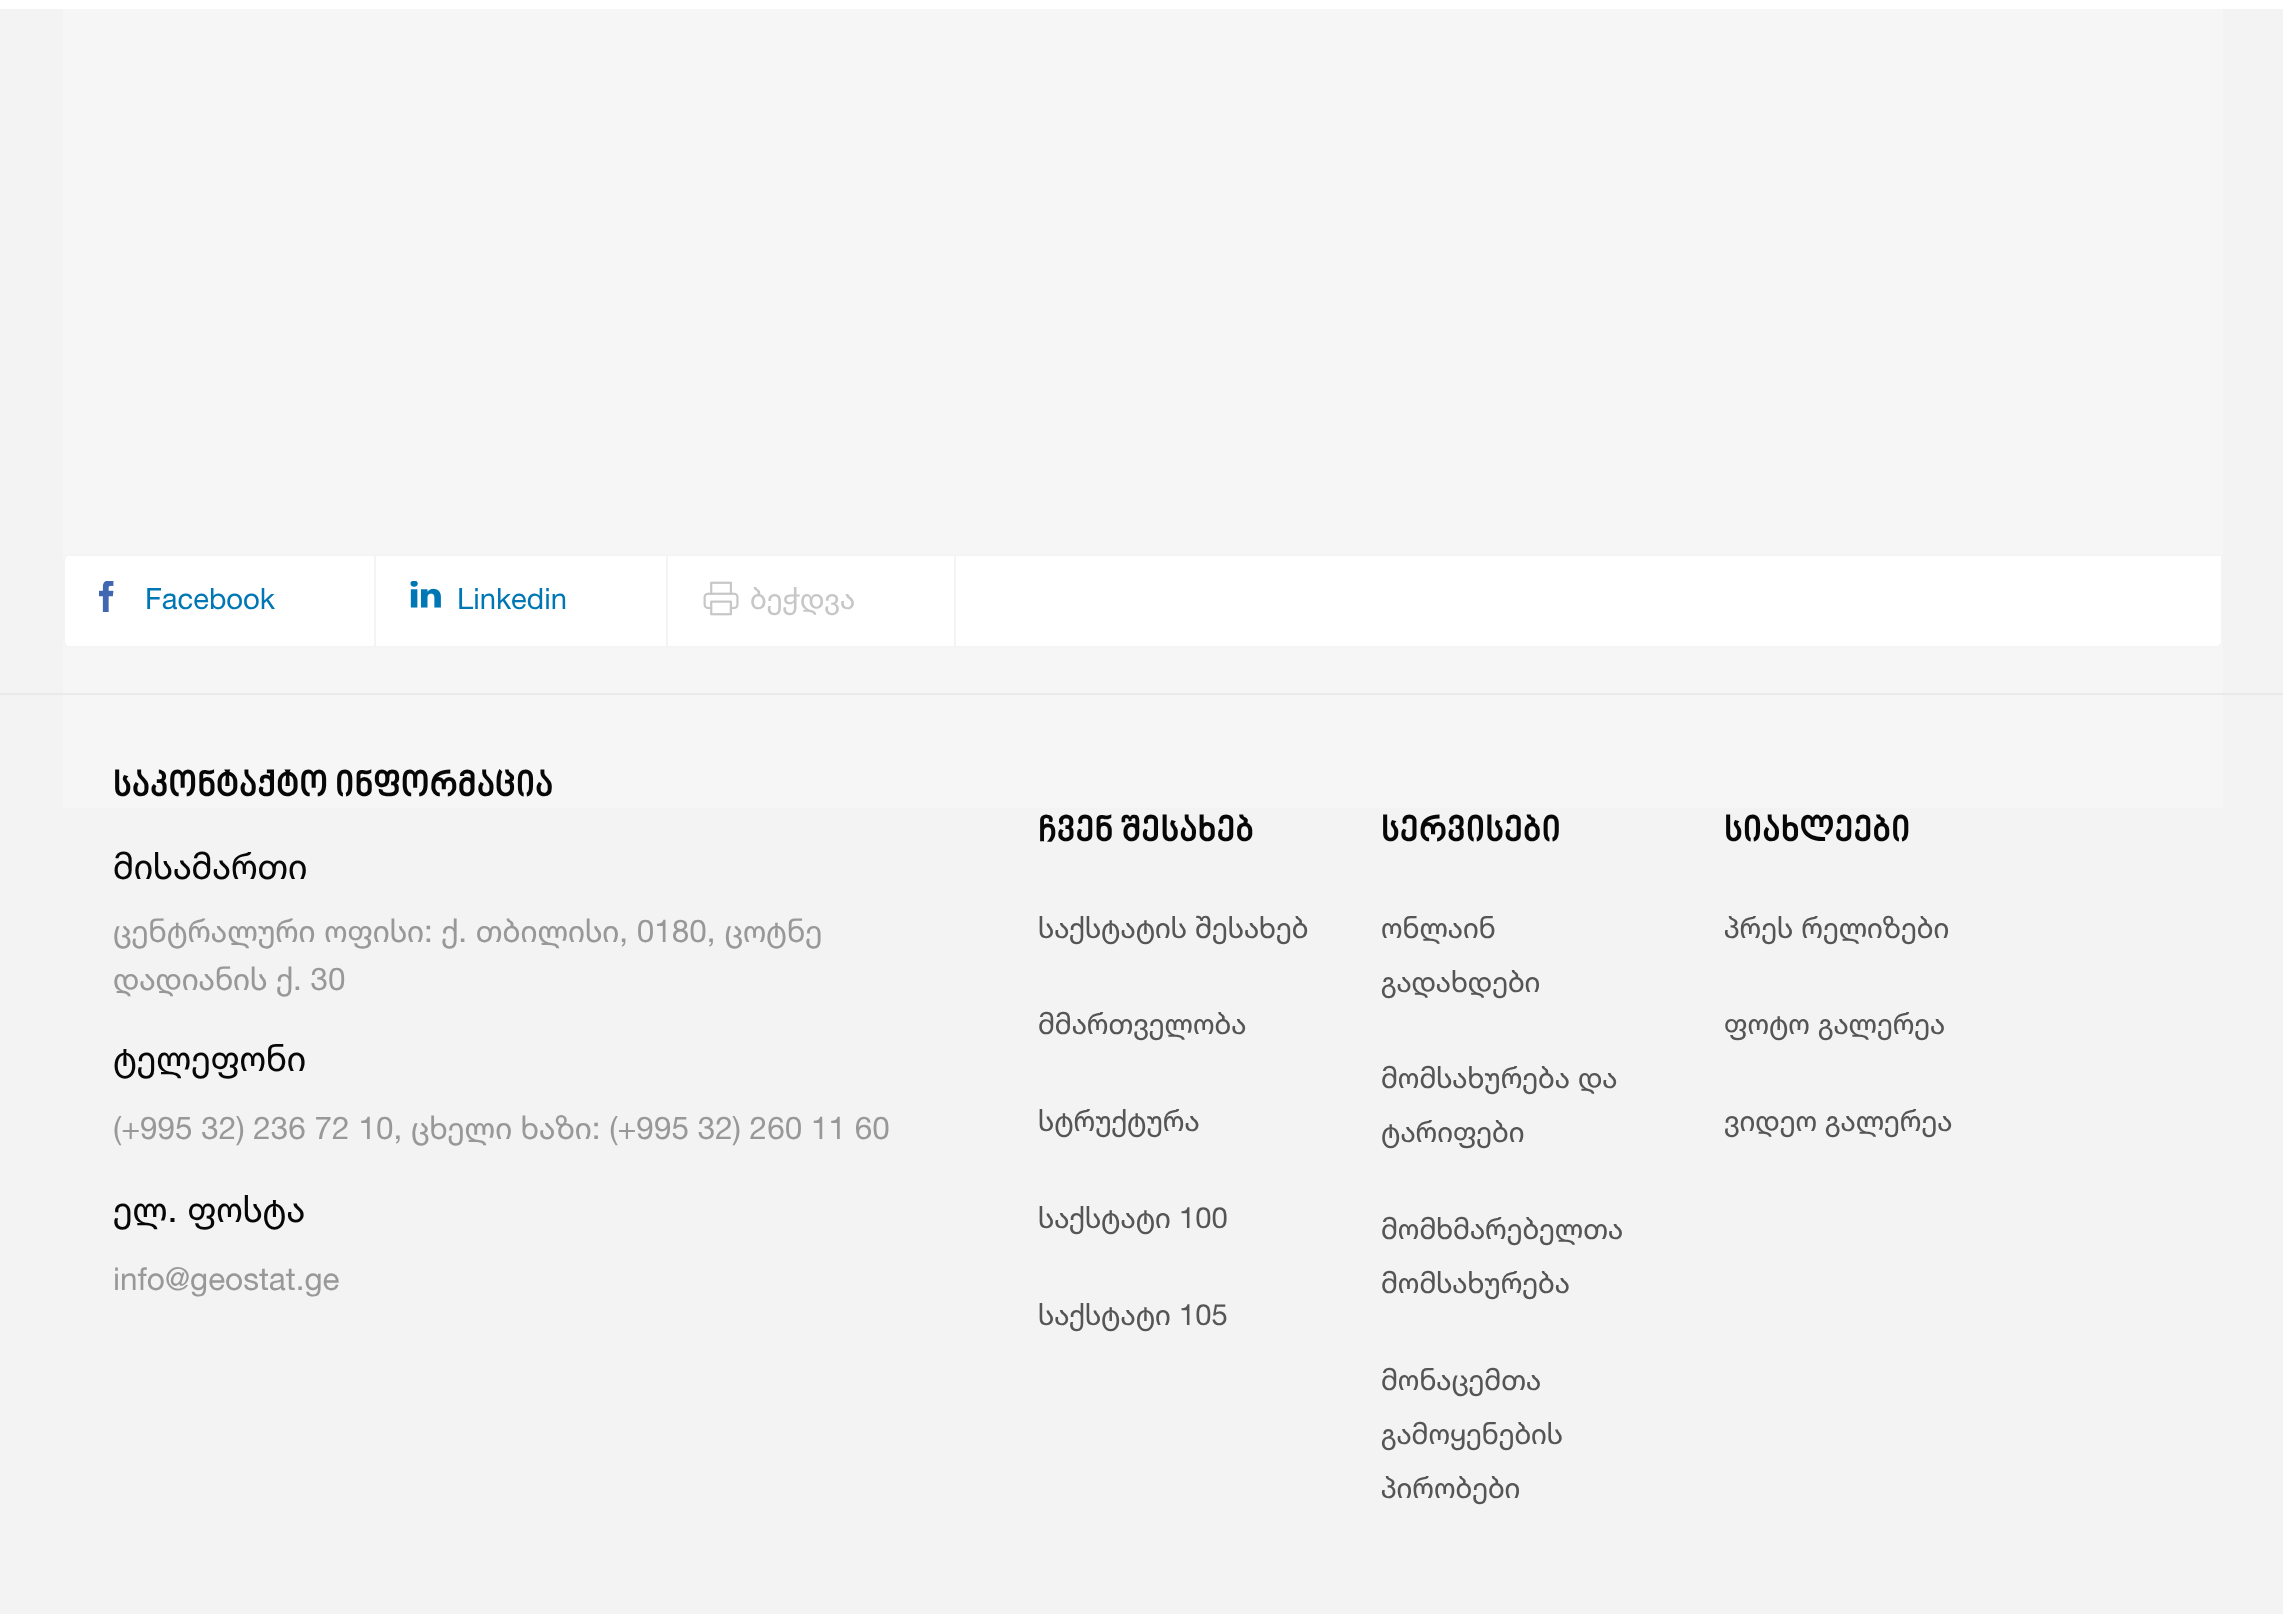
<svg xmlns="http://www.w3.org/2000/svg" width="2283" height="1614">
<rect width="100%" height="100%" fill="#f3f3f3"/>
<rect width="2283" height="9" fill="#fff"/>
<rect x="63" y="9" width="2160" height="799" fill="#f6f6f6"/>
<path d="M70 555h2152v86c0 3.5-2.5 6-6 6h-2146c-3.5 0-6-2.5-6-6v-80c0-3.5 2.5-6 6-6z" fill="#fff" stroke="#f4f4f4" stroke-width="2"/>
<rect x="374" y="556" width="2" height="90" fill="#f4f4f4"/>
<image x="99" y="581" width="15" height="31" href="media/1.png"/>
<text x="145" y="609" style="font-family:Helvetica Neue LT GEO;font-size:29.25px;fill:#0077b5">Facebook</text>
<rect x="666" y="556" width="2" height="90" fill="#f4f4f4"/>
<image x="410" y="581" width="31" height="27" href="media/2.png"/>
<text x="457" y="609" style="font-family:Helvetica Neue LT GEO;font-size:29.25px;fill:#0077b5">Linkedin</text>
<rect x="954" y="556" width="2" height="90" fill="#f4f4f4"/>
<image x="703" y="581" width="36" height="35" href="media/3.png"/>
<text x="750" y="609" style="font-family:Helvetica Neue LT GEO;font-size:29.25px;fill:#c7c7c7">ბეჭდვა</text>
<rect y="693" width="2283" height="2" fill="#e9e9e9"/>
<text x="113" y="798" style="font-family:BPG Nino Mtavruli;font-size:36px;font-weight:bold;fill:#080707">საკონტაქტო ინფორმაცია</text>
<text x="113" y="879" style="font-family:Helvetica Neue LT GEO;font-size:36px;fill:#080707">მისამართი</text>
<text x="113" y="942" style="font-family:Helvetica Neue LT GEO;font-size:31.5px;fill:#989898">ცენტრალური ოფისი: ქ. თბილისი, 0180, ცოტნე</text>
<text x="113" y="990" style="font-family:Helvetica Neue LT GEO;font-size:31.5px;fill:#989898">დადიანის ქ. 30</text>
<text x="113" y="1071" style="font-family:Helvetica Neue LT GEO;font-size:36px;fill:#080707">ტელეფონი</text>
<text x="113" y="1139" style="font-family:Helvetica Neue LT GEO;font-size:31.5px;fill:#989898">(+995 32) 236 72 10, ცხელი ხაზი: (+995 32) 260 11 60</text>
<text x="113" y="1222" style="font-family:Helvetica Neue LT GEO;font-size:36px;fill:#080707">ელ. ფოსტა</text>
<text x="113" y="1290" style="font-family:Helvetica Neue LT GEO;font-size:31.5px;fill:#989898">info@geostat.ge</text>
<text x="1038" y="843" style="font-family:BPG Nino Mtavruli;font-size:36px;font-weight:bold;fill:#080707">ჩვენ შესახებ</text>
<text x="1038" y="938" style="font-family:Helvetica Neue LT GEO;font-size:29.25px;fill:#555">საქსტატის შესახებ</text>
<text x="1038" y="1034" style="font-family:Helvetica Neue LT GEO;font-size:29.25px;fill:#555">მმართველობა</text>
<text x="1038" y="1131" style="font-family:Helvetica Neue LT GEO;font-size:29.25px;fill:#555">სტრუქტურა</text>
<text x="1038" y="1228" style="font-family:Helvetica Neue LT GEO;font-size:29.25px;fill:#555">საქსტატი 100</text>
<text x="1038" y="1325" style="font-family:Helvetica Neue LT GEO;font-size:29.25px;fill:#555">საქსტატი 105</text>
<text x="1381" y="843" style="font-family:BPG Nino Mtavruli;font-size:36px;font-weight:bold;fill:#080707">სერვისები</text>
<text x="1381" y="938" style="font-family:Helvetica Neue LT GEO;font-size:29.25px;fill:#555">ონლაინ</text>
<text x="1381" y="992" style="font-family:Helvetica Neue LT GEO;font-size:29.25px;fill:#555">გადახდები</text>
<text x="1381" y="1088" style="font-family:Helvetica Neue LT GEO;font-size:29.25px;fill:#555">მომსახურება და</text>
<text x="1381" y="1142" style="font-family:Helvetica Neue LT GEO;font-size:29.25px;fill:#555">ტარიფები</text>
<text x="1381" y="1239" style="font-family:Helvetica Neue LT GEO;font-size:29.25px;fill:#555">მომხმარებელთა</text>
<text x="1381" y="1293" style="font-family:Helvetica Neue LT GEO;font-size:29.25px;fill:#555">მომსახურება</text>
<text x="1381" y="1390" style="font-family:Helvetica Neue LT GEO;font-size:29.25px;fill:#555">მონაცემთა</text>
<text x="1381" y="1444" style="font-family:Helvetica Neue LT GEO;font-size:29.25px;fill:#555">გამოყენების</text>
<text x="1381" y="1498" style="font-family:Helvetica Neue LT GEO;font-size:29.25px;fill:#555">პირობები</text>
<text x="1724" y="843" style="font-family:BPG Nino Mtavruli;font-size:36px;font-weight:bold;fill:#080707">სიახლეები</text>
<text x="1724" y="938" style="font-family:Helvetica Neue LT GEO;font-size:29.25px;fill:#555">პრეს რელიზები</text>
<text x="1724" y="1034" style="font-family:Helvetica Neue LT GEO;font-size:29.25px;fill:#555">ფოტო გალერეა</text>
<text x="1724" y="1131" style="font-family:Helvetica Neue LT GEO;font-size:29.25px;fill:#555">ვიდეო გალერეა</text>
</svg>
